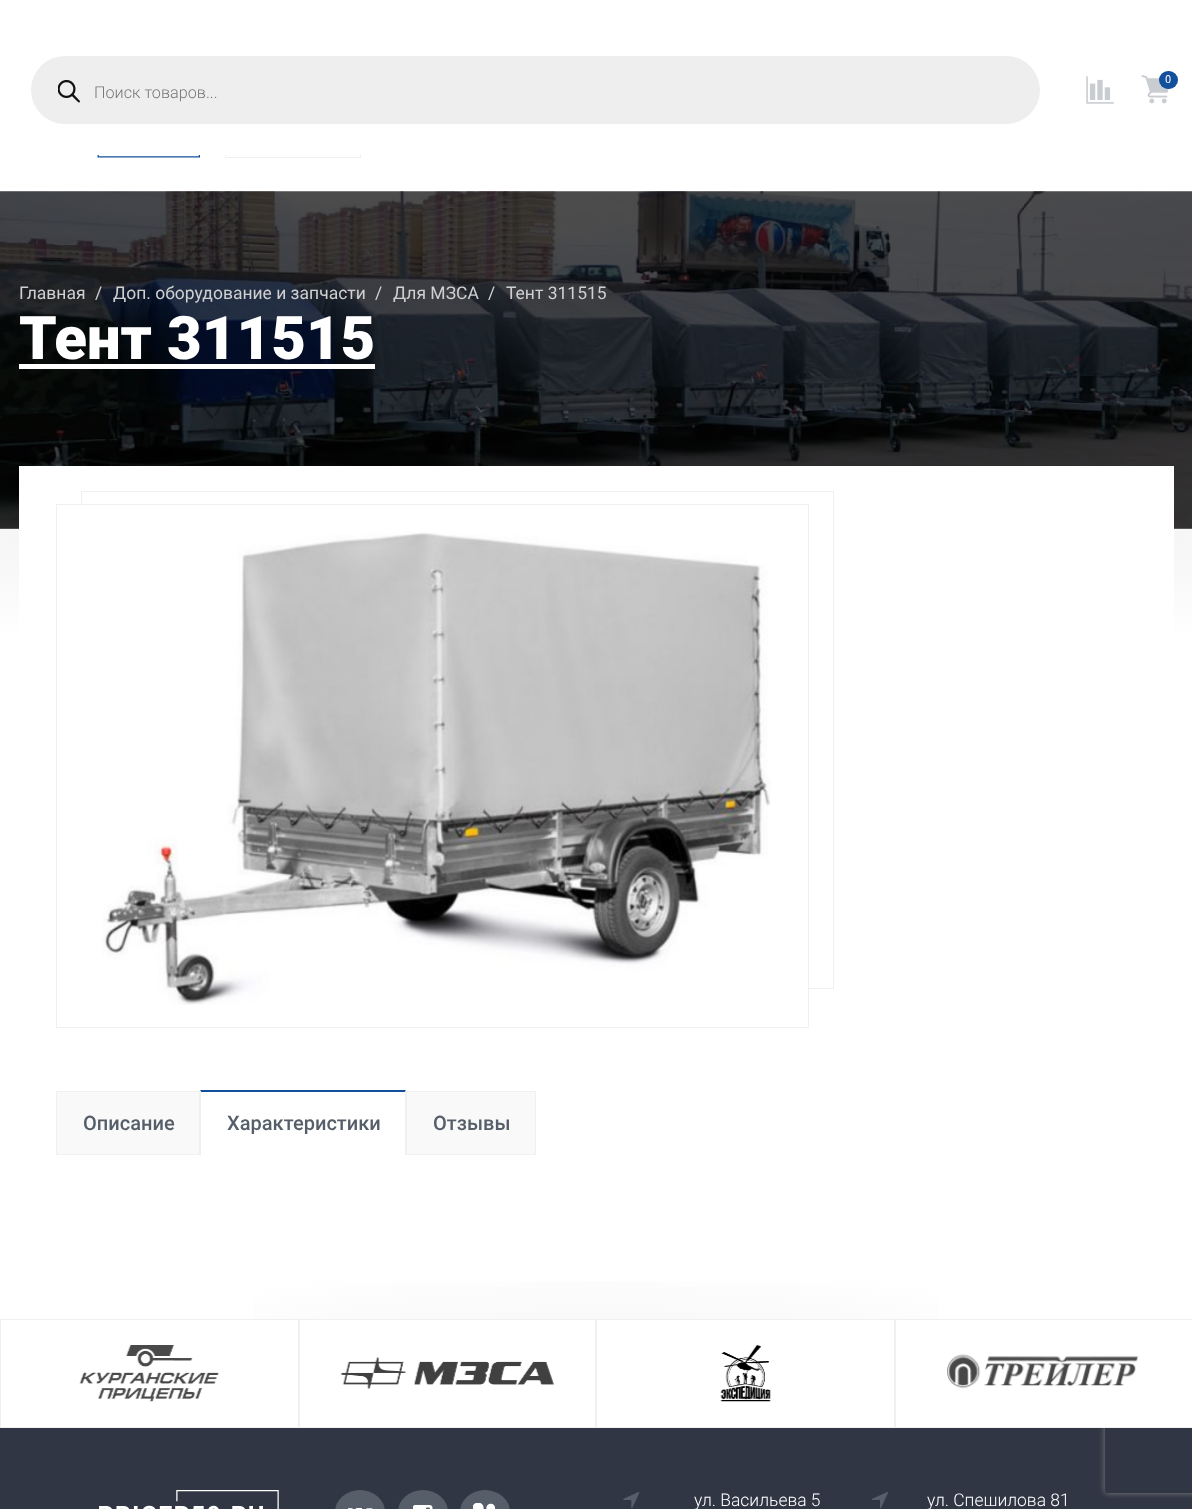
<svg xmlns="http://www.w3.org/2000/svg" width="1192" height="1509">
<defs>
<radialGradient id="g1" gradientUnits="userSpaceOnUse" cx="0" cy="0" r="1" gradientTransform="matrix(1193 0 0 125 596 529)"><stop offset="0" stop-color="#eee"/><stop offset="1" stop-color="#fff"/></radialGradient>
<radialGradient id="g2" gradientUnits="userSpaceOnUse" cx="0" cy="0" r="1" gradientTransform="matrix(596 0 0 171 596 1428)"><stop offset="0" stop-color="#edeeee"/><stop offset="1" stop-color="#fff"/></radialGradient>
<clipPath id="clip1"><path d="M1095 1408h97v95h-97zm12.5 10h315c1.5 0 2.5 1 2.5 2.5v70c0 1.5-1 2.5-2.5 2.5h-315c-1.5 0-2.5-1-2.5-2.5v-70c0-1.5 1-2.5 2.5-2.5z" clip-rule="evenodd"/></clipPath>
</defs>
<rect width="100%" height="100%" fill="#fff"/>
<rect x="225.5" y="108.5" width="135" height="49" fill="none" stroke="#f0f0f0"/>
<rect x="225" y="108" width="136" height="47" fill="#fff"/>
<rect x="31" y="56" width="1009" height="68" rx="34" fill="#eee"/>
<image x="58" y="80" width="22" height="23" href="media/1.png"/>
<text x="94" y="98" style="font-family:Roboto;font-size:16.25px;font-weight:300;fill:#777">Поиск товаров...</text>
<image x="1086" y="76" width="28" height="28" href="media/2.png"/>
<image x="1141" y="75" width="28" height="29" href="media/3.png"/>
<rect x="1159" y="71" width="19" height="18" rx="9" fill="#124f9d"/>
<text x="1165" y="83" style="font-family:Roboto;font-size:11px;fill:#fff">0</text>
<image x="97" y="155" width="103" height="3" href="media/4.png"/>
<image x="0" y="191" width="1192" height="338" href="media/5.png"/>
<text x="19" y="299" style="font-family:Roboto;font-size:17.5px;fill:#d0d0d0">Главная</text>
<text x="95" y="299" style="font-family:Roboto;font-size:17.5px;fill:#d0d0d0">/</text>
<text x="113" y="299" style="font-family:Roboto;font-size:17.5px;fill:#d0d0d0">Доп. оборудование и запчасти</text>
<text x="375" y="299" style="font-family:Roboto;font-size:17.5px;fill:#d0d0d0">/</text>
<text x="393" y="299" style="font-family:Roboto;font-size:17.5px;fill:#d0d0d0">Для МЗСА</text>
<text x="488" y="299" style="font-family:Roboto;font-size:17.5px;fill:#d0d0d0">/</text>
<text x="506" y="299" style="font-family:Roboto;font-size:17.5px;fill:#d0d0d0">Тент 311515</text>
<text x="19" y="359" style="font-family:Roboto;font-size:60px;font-weight:900;fill:#fff">Тент 311515</text>
<rect x="19" y="364" width="356" height="5" fill="#fff"/>
<rect y="529" width="1192" height="106" fill="url(#g1)"/>
<rect x="19" y="466" width="1155" height="169" fill="#fff"/>
<rect x="81.5" y="491.5" width="752" height="497" fill="none" stroke="#f0f0f0"/>
<rect x="81" y="505" width="727" height="484" fill="#fff"/>
<rect x="56.5" y="504.5" width="752" height="523" fill="none" stroke="#f0f0f0"/>
<image x="102" y="532" width="669" height="473" href="media/6.png"/>
<rect x="56.5" y="1091.5" width="143" height="63" fill="#f9f9fa" stroke="#f0f0f0"/>
<text x="83" y="1130" style="font-family:Roboto;font-size:20px;font-weight:500;fill:#565e6a">Описание</text>
<path d="M200 1090h206l-1 2h-204z" fill="#124f9d"/>
<path d="M406 1090v66l-1-2v-62z" fill="#f0f0f0"/>
<path d="M406 1156h-206l1-2h204z" fill="#fff"/>
<path d="M200 1156v-66l1 2v62z" fill="#f0f0f0"/>
<text x="227" y="1130" style="font-family:Roboto;font-size:20px;font-weight:500;fill:#565e6a">Характеристики</text>
<rect x="406.5" y="1091.5" width="129" height="63" fill="#f9f9fa" stroke="#f0f0f0"/>
<text x="433" y="1130" style="font-family:Roboto;font-size:20px;font-weight:500;fill:#565e6a">Отзывы</text>
<rect x="253" y="1281" width="686" height="38" fill="url(#g2)"/>
<rect y="1428" width="1192" height="81" fill="#303644"/>
<g clip-path="url(#clip1)">
<rect x="1105" y="1418" width="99" height="75" rx="2.5" fill="#808080" filter="blur(3px)"/>
</g>
<rect x="1099" y="1412" width="93" height="15" fill="#fff"/>
<rect x="0.5" y="1319.5" width="298" height="108" fill="none" stroke="#f0f0f0"/>
<image x="79" y="1345" width="140" height="57" href="media/7.png"/>
<rect x="299.5" y="1319.5" width="296" height="108" fill="none" stroke="#f0f0f0"/>
<image x="340" y="1357" width="214" height="32" href="media/8.png"/>
<rect x="596.5" y="1319.5" width="298" height="108" fill="none" stroke="#f0f0f0"/>
<image x="720" y="1345" width="51" height="57" href="media/9.png"/>
<rect x="895.5" y="1319.5" width="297" height="108" fill="none" stroke="#f0f0f0"/>
<image x="947" y="1354" width="192" height="35" href="media/10.png"/>
<image x="99" y="1490" width="180" height="19" href="media/11.png"/>
<rect x="335" y="1490" width="50" height="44" rx="25" fill="#565e6a"/>
<image x="348" y="1508" width="25" height="1" href="media/12.png"/>
<rect x="398" y="1490" width="50" height="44" rx="25" fill="#565e6a"/>
<image x="413" y="1505" width="20" height="4" href="media/13.png"/>
<rect x="460" y="1490" width="50" height="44" rx="25" fill="#565e6a"/>
<image x="473" y="1503" width="23" height="6" href="media/14.png"/>
<image x="623" y="1492" width="17" height="16" href="media/15.png"/>
<text x="694" y="1506" style="font-family:Roboto;font-size:17.5px;font-weight:300;fill:#fff">ул. Васильева 5</text>
<image x="872" y="1492" width="16" height="17" href="media/16.png"/>
<text x="927" y="1506" style="font-family:Roboto;font-size:17.5px;font-weight:300;fill:#fff">ул. Спешилова 81</text>
</svg>
